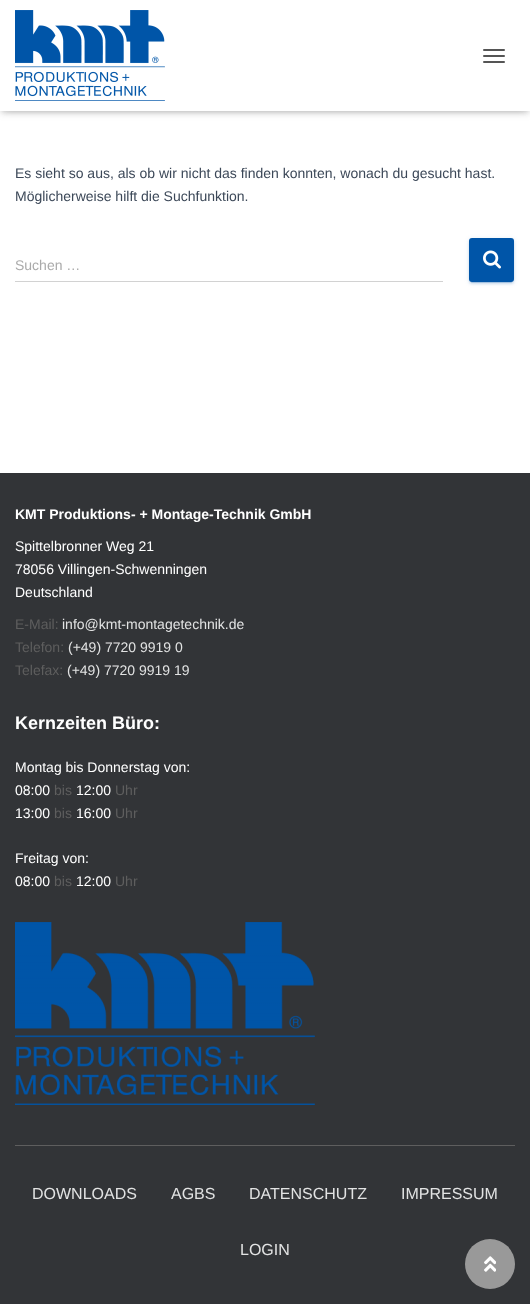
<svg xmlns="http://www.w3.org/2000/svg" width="530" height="1304">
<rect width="100%" height="100%" fill="#fff"/>
<rect x="2" y="6" width="526" height="107" fill="#0000001a" filter="blur(2.5px)"/>
<rect y="1" width="530" height="111" fill="#0000001f" filter="blur(5px)"/>
<rect x="6" y="7" width="518" height="99" fill="#0000006b" filter="blur(5px)"/>
<rect width="530" height="111" fill="#fff"/>
<image x="15" y="10" width="150" height="91" href="media/1.png"/>
<rect x="483" y="49" width="22" height="2" rx="1" fill="#555"/>
<rect x="483" y="55" width="22" height="2" rx="1" fill="#555"/>
<rect x="483" y="61" width="22" height="2" rx="1" fill="#555"/>
<text x="15" y="178" style="font-family:Liberation Sans;font-size:14px;fill:#3c4858">Es sieht so aus, als ob wir nicht das finden konnten, wonach du gesucht hast.</text>
<text x="15" y="201" style="font-family:Liberation Sans;font-size:14px;fill:#3c4858">Möglicherweise hilft die Suchfunktion.</text>
<text x="15" y="270" style="font-family:Liberation Sans;font-size:14px;fill:#aaa">Suchen …</text>
<rect x="15" y="281" width="428" height="1" fill="#d2d2d2"/>
<rect x="469" y="239" width="45" height="44" rx="3" fill="#0055a81f" filter="blur(2.5px)"/>
<rect x="471" y="243" width="41" height="40" rx="1" fill="#0055a833" filter="blur(0.5px)"/>
<rect x="469" y="240" width="45" height="44" rx="3" fill="#0055a824" filter="blur(1px)"/>
<rect x="469" y="238" width="45" height="44" rx="3" fill="#0055a8"/>
<image x="483" y="250" width="18" height="19" href="media/2.png"/>
<rect y="473" width="530" height="831" fill="#323437"/>
<text x="15" y="519" style="font-family:Liberation Sans;font-size:14px;font-weight:bold;fill:#fff">KMT Produktions- + Montage-Technik GmbH</text>
<text x="15" y="551" style="font-family:Liberation Sans;font-size:14px;fill:#fff">Spittelbronner Weg 21</text>
<text x="15" y="574" style="font-family:Liberation Sans;font-size:14px;fill:#fff">78056 Villingen-Schwenningen</text>
<text x="15" y="597" style="font-family:Liberation Sans;font-size:14px;fill:#fff">Deutschland</text>
<text x="15" y="629" style="font-family:Liberation Sans;font-size:14px;fill:#5e5e5e">E-Mail:</text>
<text x="62" y="629" style="font-family:Liberation Sans;font-size:14px;fill:#e2e3e3">info@kmt-montagetechnik.de</text>
<text x="15" y="652" style="font-family:Liberation Sans;font-size:14px;fill:#5e5e5e">Telefon:</text>
<text x="68" y="652" style="font-family:Liberation Sans;font-size:14px;fill:#e2e3e3">(+49) 7720 9919 0</text>
<text x="15" y="675" style="font-family:Liberation Sans;font-size:14px;fill:#5e5e5e">Telefax:</text>
<text x="67" y="675" style="font-family:Liberation Sans;font-size:14px;fill:#e2e3e3">(+49) 7720 9919 19</text>
<text x="15" y="729" style="font-family:Liberation Sans;font-size:18px;font-weight:bold;fill:#fff">Kernzeiten Büro:</text>
<text x="15" y="772" style="font-family:Liberation Sans;font-size:14px;fill:#fff">Montag bis Donnerstag von:</text>
<text x="15" y="795" style="font-family:Liberation Sans;font-size:14px;fill:#fff">08:00</text>
<text x="54" y="795" style="font-family:Liberation Sans;font-size:14px;fill:#5e5e5e">bis</text>
<text x="76" y="795" style="font-family:Liberation Sans;font-size:14px;fill:#fff">12:00</text>
<text x="115" y="795" style="font-family:Liberation Sans;font-size:14px;fill:#5e5e5e">Uhr</text>
<text x="15" y="818" style="font-family:Liberation Sans;font-size:14px;fill:#fff">13:00</text>
<text x="54" y="818" style="font-family:Liberation Sans;font-size:14px;fill:#5e5e5e">bis</text>
<text x="76" y="818" style="font-family:Liberation Sans;font-size:14px;fill:#fff">16:00</text>
<text x="115" y="818" style="font-family:Liberation Sans;font-size:14px;fill:#5e5e5e">Uhr</text>
<text x="15" y="863" style="font-family:Liberation Sans;font-size:14px;fill:#fff">Freitag von:</text>
<text x="15" y="886" style="font-family:Liberation Sans;font-size:14px;fill:#fff">08:00</text>
<text x="54" y="886" style="font-family:Liberation Sans;font-size:14px;fill:#5e5e5e">bis</text>
<text x="76" y="886" style="font-family:Liberation Sans;font-size:14px;fill:#fff">12:00</text>
<text x="115" y="886" style="font-family:Liberation Sans;font-size:14px;fill:#5e5e5e">Uhr</text>
<image x="15" y="922" width="300" height="183" href="media/3.png"/>
<rect x="15" y="1145" width="500" height="1" fill="#5e5e5e"/>
<text x="32" y="1199" style="font-family:Liberation Sans;font-size:16px;fill:#e2e3e3">DOWNLOADS</text>
<text x="171" y="1199" style="font-family:Liberation Sans;font-size:16px;fill:#e2e3e3">AGBS</text>
<text x="249" y="1199" style="font-family:Liberation Sans;font-size:16px;fill:#e2e3e3">DATENSCHUTZ</text>
<text x="401" y="1199" style="font-family:Liberation Sans;font-size:16px;fill:#e2e3e3">IMPRESSUM</text>
<text x="240" y="1255" style="font-family:Liberation Sans;font-size:16px;fill:#e2e3e3">LOGIN</text>
<circle cx="490" cy="1264" r="25" fill="#999"/>
<image x="484" y="1256" width="12" height="16" href="media/4.png"/>
</svg>
